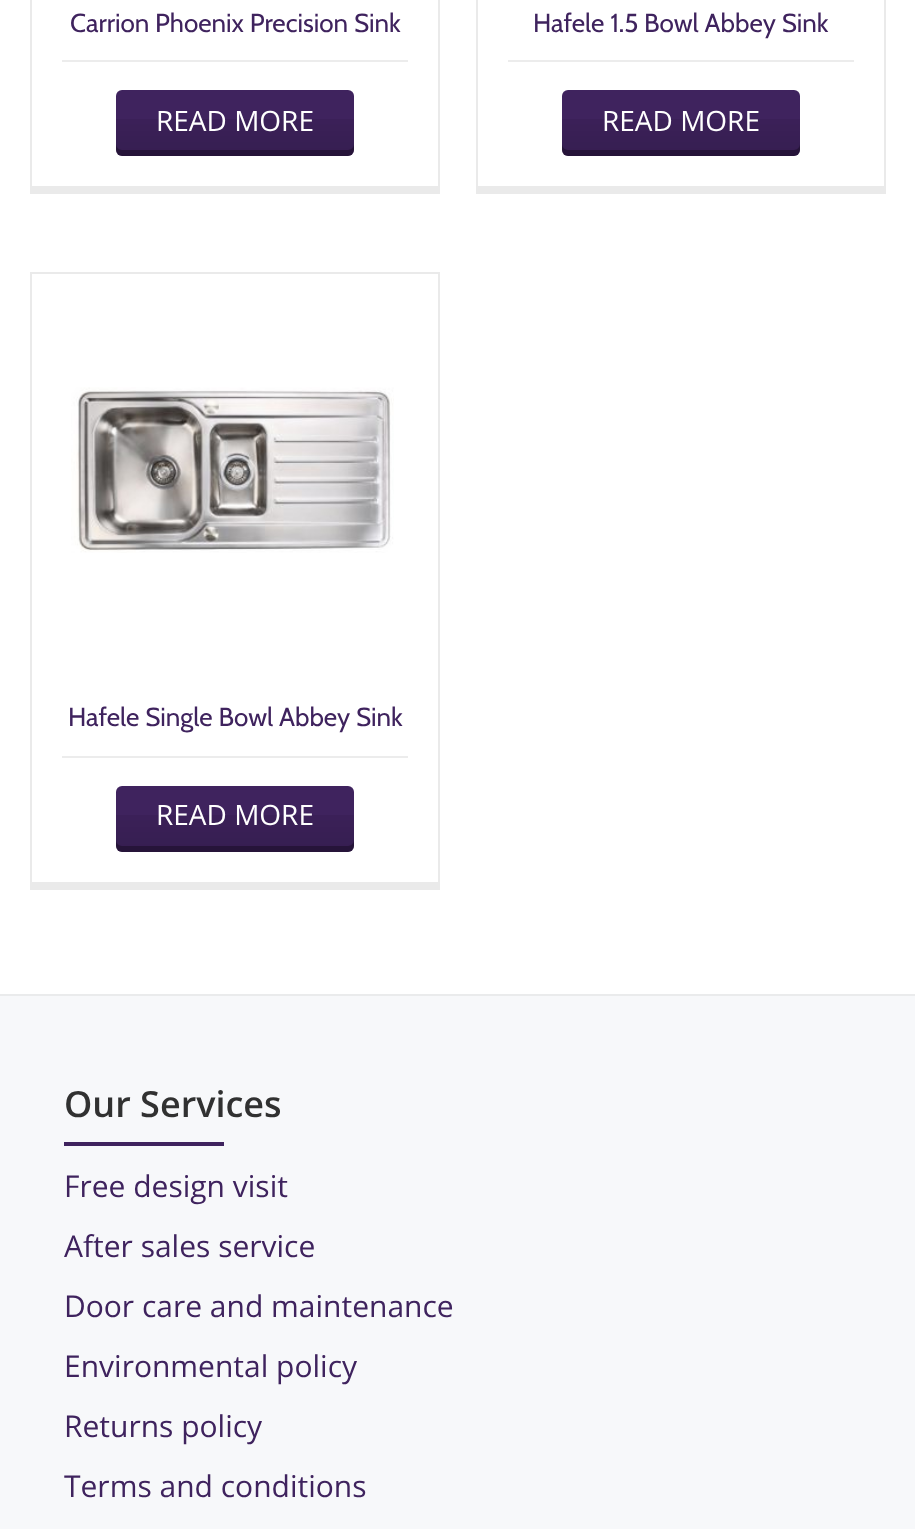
<svg xmlns="http://www.w3.org/2000/svg" width="915" height="1529">
<rect width="100%" height="100%" fill="#fff"/>
<rect x="438" width="2" height="194" fill="#eaeaea"/>
<rect x="30" y="186" width="410" height="8" fill="#eaeaea"/>
<rect x="30" width="2" height="194" fill="#eaeaea"/>
<rect x="62" y="60" width="346" height="2" fill="#ececec"/>
<text x="70" y="32" style="font-family:Cabin;font-size:26px;fill:#3f235e">Carrion Phoenix Precision Sink</text>
<rect x="116" y="90" width="238" height="66" rx="6" fill="#3f235e"/>
<image x="116" y="119" width="238" height="37" href="media/1.png"/>
<path d="M116 144v6c0 3 3 6 6 6h226c3 0 6-3 6-6v-6c0 3-3 6-6 6h-226c-3 0-6-3-6-6z" fill="#0000004d"/>
<text x="156" y="131" style="font-family:Open Sans;font-size:28px;fill:#fff">READ MORE</text>
<rect x="884" width="2" height="194" fill="#eaeaea"/>
<rect x="476" y="186" width="410" height="8" fill="#eaeaea"/>
<rect x="476" width="2" height="194" fill="#eaeaea"/>
<rect x="508" y="60" width="346" height="2" fill="#ececec"/>
<text x="533" y="32" style="font-family:Cabin;font-size:26px;fill:#3f235e">Hafele 1.5 Bowl Abbey Sink</text>
<rect x="562" y="90" width="238" height="66" rx="6" fill="#3f235e"/>
<image x="562" y="119" width="238" height="37" href="media/1.png"/>
<path d="M562 144v6c0 3 3 6 6 6h226c3 0 6-3 6-6v-6c0 3-3 6-6 6h-226c-3 0-6-3-6-6z" fill="#0000004d"/>
<text x="602" y="131" style="font-family:Open Sans;font-size:28px;fill:#fff">READ MORE</text>
<rect x="30" y="272" width="410" height="2" fill="#eaeaea"/>
<rect x="438" y="272" width="2" height="618" fill="#eaeaea"/>
<rect x="30" y="882" width="410" height="8" fill="#eaeaea"/>
<rect x="30" y="272" width="2" height="618" fill="#eaeaea"/>
<rect x="62" y="756" width="346" height="2" fill="#ececec"/>
<image x="71" y="387" width="323" height="166" href="media/2.png"/>
<text x="68" y="726" style="font-family:Cabin;font-size:26px;fill:#3f235e">Hafele Single Bowl Abbey Sink</text>
<rect x="116" y="786" width="238" height="66" rx="6" fill="#3f235e"/>
<image x="116" y="815" width="238" height="37" href="media/1.png"/>
<path d="M116 840v6c0 3 3 6 6 6h226c3 0 6-3 6-6v-6c0 3-3 6-6 6h-226c-3 0-6-3-6-6z" fill="#0000004d"/>
<text x="156" y="825" style="font-family:Open Sans;font-size:28px;fill:#fff">READ MORE</text>
<rect y="996" width="915" height="533" fill="#f7f8fa"/>
<rect y="994" width="915" height="2" fill="#eaebec"/>
<text x="64" y="1117" style="font-family:Open Sans;font-size:36px;font-weight:600;fill:#313131">Our Services</text>
<rect x="64" y="1142" width="160" height="4" fill="#3f235e"/>
<text x="64" y="1197" style="font-family:Open Sans;font-size:30px;fill:#3f235e">Free design visit</text>
<text x="64" y="1257" style="font-family:Open Sans;font-size:30px;fill:#3f235e">After sales service</text>
<text x="64" y="1317" style="font-family:Open Sans;font-size:30px;fill:#3f235e">Door care and maintenance</text>
<text x="64" y="1377" style="font-family:Open Sans;font-size:30px;fill:#3f235e">Environmental policy</text>
<text x="64" y="1437" style="font-family:Open Sans;font-size:30px;fill:#3f235e">Returns policy</text>
<text x="64" y="1497" style="font-family:Open Sans;font-size:30px;fill:#3f235e">Terms and conditions</text>
</svg>
